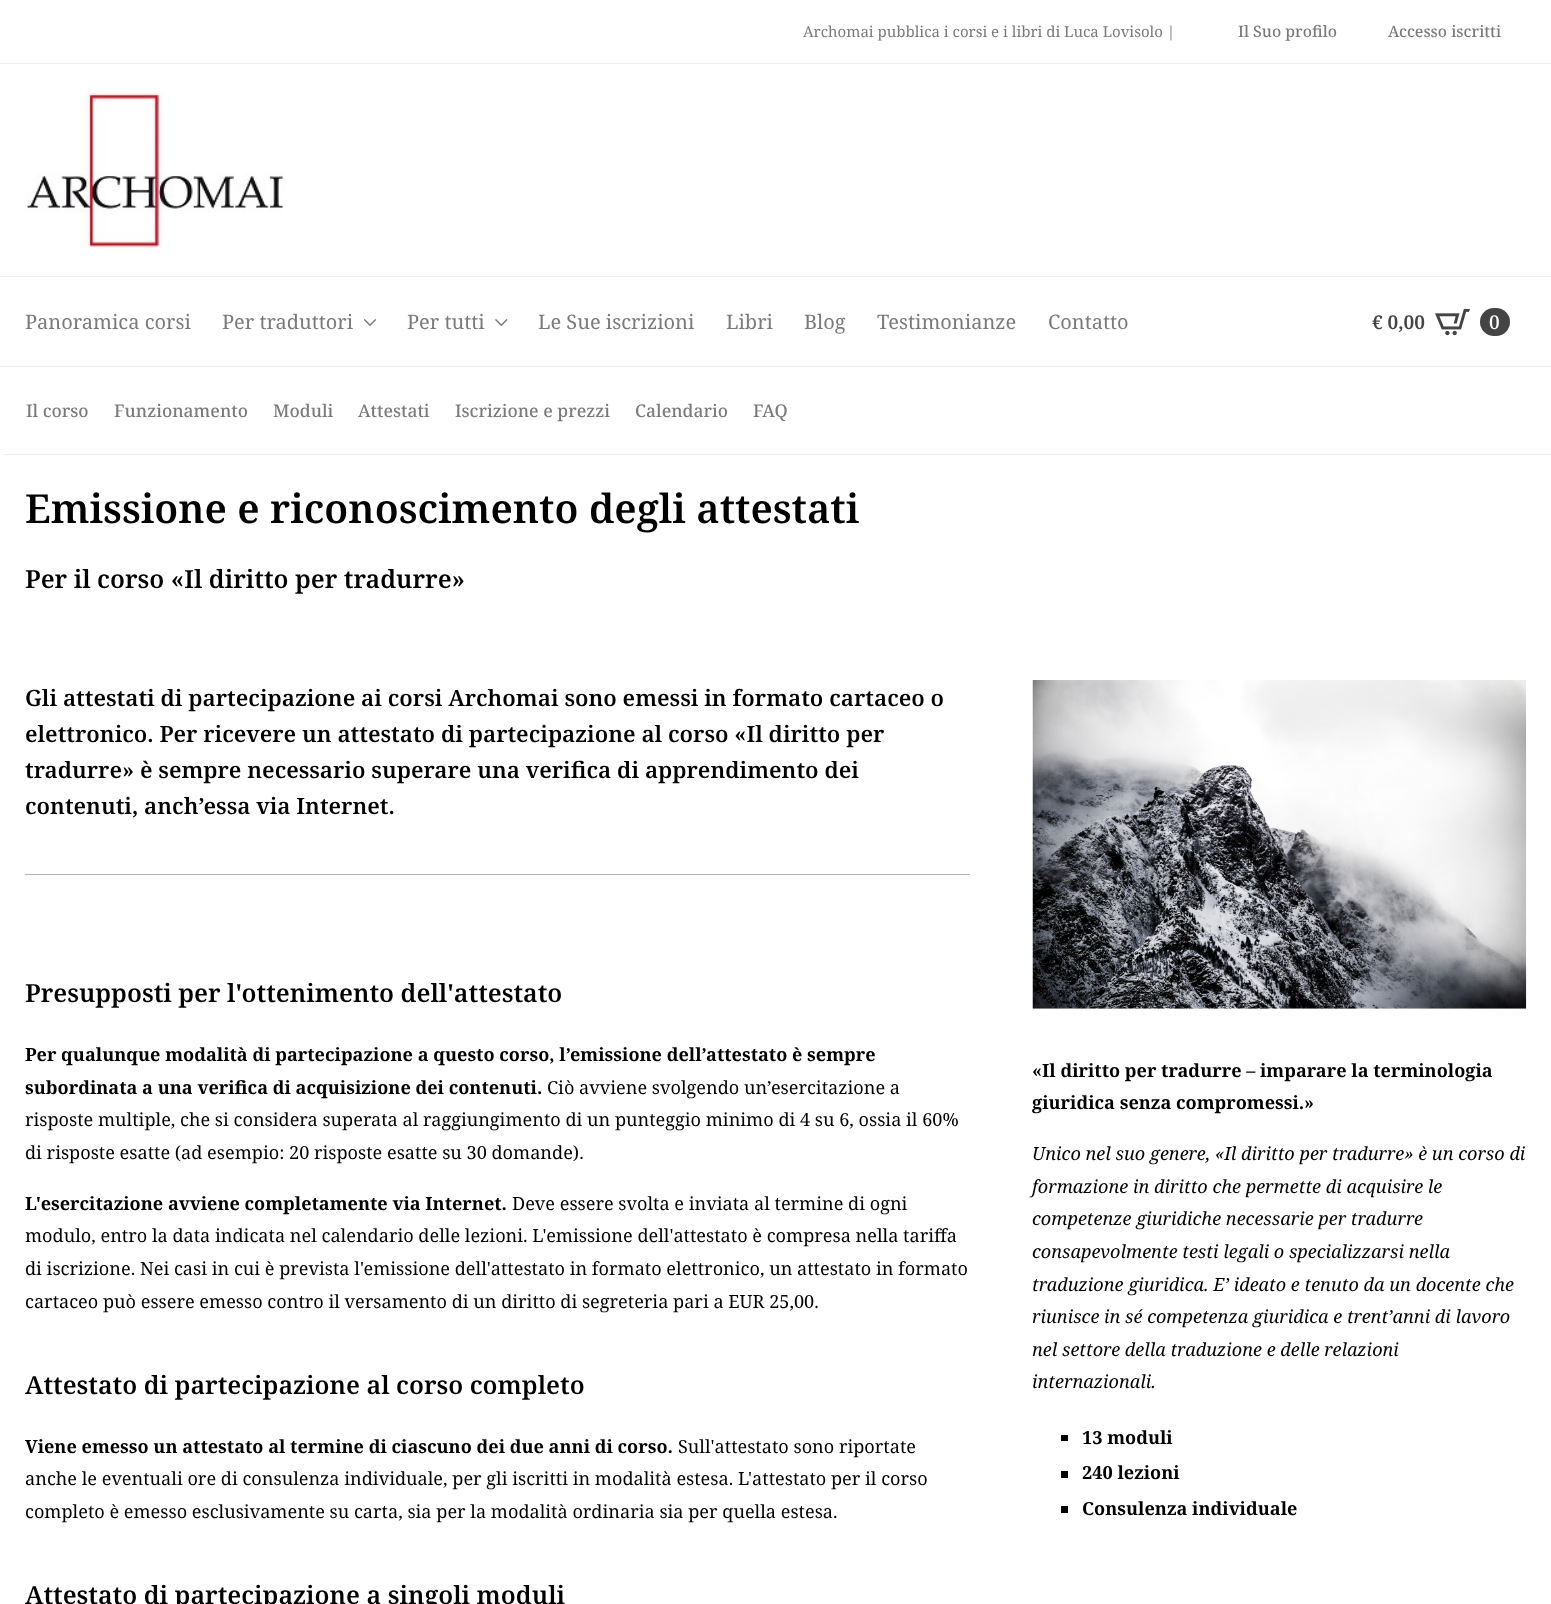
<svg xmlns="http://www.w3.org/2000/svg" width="1551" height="1604">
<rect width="100%" height="100%" fill="#fff"/>
<rect y="63" width="1551" height="1" fill="#ececec"/>
<text x="803" y="37" style="font-family:Noto Serif;font-size:15px;fill:#7a7a7a">Archomai pubblica i corsi e i libri di Luca Lovisolo |</text>
<text x="1238" y="37" style="font-family:Noto Serif;font-size:15.75px;font-weight:500;fill:#7a7a7a">Il Suo profilo</text>
<text x="1388" y="37" style="font-family:Noto Serif;font-size:15.75px;font-weight:500;fill:#7a7a7a">Accesso iscritti</text>
<image x="25" y="93" width="260" height="156" href="media/1.png"/>
<rect y="276" width="1551" height="1" fill="#ececec"/>
<rect y="366" width="1551" height="1" fill="#ececec"/>
<text x="25" y="329" style="font-family:Noto Serif;font-size:20px;fill:#7a7a7a">Panoramica corsi</text>
<text x="222" y="329" style="font-family:Noto Serif;font-size:20px;fill:#7a7a7a">Per traduttori</text>
<image x="364" y="319" width="12" height="7" href="media/2.png"/>
<text x="407" y="329" style="font-family:Noto Serif;font-size:20px;fill:#7a7a7a">Per tutti</text>
<image x="495" y="319" width="13" height="7" href="media/3.png"/>
<text x="538" y="329" style="font-family:Noto Serif;font-size:20px;fill:#7a7a7a">Le Sue iscrizioni</text>
<text x="726" y="329" style="font-family:Noto Serif;font-size:20px;fill:#7a7a7a">Libri</text>
<text x="804" y="329" style="font-family:Noto Serif;font-size:20px;fill:#7a7a7a">Blog</text>
<text x="877" y="329" style="font-family:Noto Serif;font-size:20px;fill:#7a7a7a">Testimonianze</text>
<text x="1048" y="329" style="font-family:Noto Serif;font-size:20px;fill:#7a7a7a">Contatto</text>
<text x="1372" y="329" style="font-family:Noto Serif;font-size:19px;font-weight:600;fill:#444">€ 0,00</text>
<image x="1435" y="308" width="35" height="28" href="media/4.png"/>
<rect x="1480" y="308" width="30" height="28" rx="14" fill="#444"/>
<text x="1489" y="329" style="font-family:Noto Serif;font-size:19px;font-weight:500;fill:#fff">0</text>
<rect x="4" y="454" width="1547" height="1" fill="#ececec"/>
<text x="26" y="417" style="font-family:Noto Serif;font-size:17.5px;font-weight:500;fill:#7a7a7a">Il corso</text>
<text x="114" y="417" style="font-family:Noto Serif;font-size:17.5px;font-weight:500;fill:#7a7a7a">Funzionamento</text>
<text x="273" y="417" style="font-family:Noto Serif;font-size:17.5px;font-weight:500;fill:#7a7a7a">Moduli</text>
<text x="358" y="417" style="font-family:Noto Serif;font-size:17.5px;font-weight:500;fill:#7a7a7a">Attestati</text>
<text x="455" y="417" style="font-family:Noto Serif;font-size:17.5px;font-weight:500;fill:#7a7a7a">Iscrizione e prezzi</text>
<text x="635" y="417" style="font-family:Noto Serif;font-size:17.5px;font-weight:500;fill:#7a7a7a">Calendario</text>
<text x="753" y="417" style="font-family:Noto Serif;font-size:17.5px;font-weight:500;fill:#7a7a7a">FAQ</text>
<text x="25" y="523" style="font-family:Noto Serif;font-size:40px;font-weight:600;fill:#000">Emissione e riconoscimento degli attestati</text>
<text x="25" y="588" style="font-family:Noto Serif;font-size:25px;font-weight:600;fill:#000">Per il corso «Il diritto per tradurre»</text>
<text x="25" y="706" style="font-family:Noto Serif;font-size:22.5px;font-weight:600;fill:#000">Gli attestati di partecipazione ai corsi Archomai sono emessi in formato cartaceo o</text>
<text x="25" y="742" style="font-family:Noto Serif;font-size:22.5px;font-weight:600;fill:#000">elettronico. Per ricevere un attestato di partecipazione al corso «Il diritto per</text>
<text x="25" y="778" style="font-family:Noto Serif;font-size:22.5px;font-weight:600;fill:#000">tradurre» è sempre necessario superare una verifica di apprendimento dei</text>
<text x="25" y="814" style="font-family:Noto Serif;font-size:22.5px;font-weight:600;fill:#000">contenuti, anch’essa via Internet.</text>
<rect x="25" y="874" width="945" height="1" fill="#b2b2b2"/>
<text x="25" y="1002" style="font-family:Noto Serif;font-size:25px;font-weight:600;fill:#000">Presupposti per l'ottenimento dell'attestato</text>
<text x="25" y="1061" style="font-family:Noto Serif;font-size:18.12px;font-weight:bold;fill:#000">Per qualunque modalità di partecipazione a questo corso, l’emissione dell’attestato è sempre</text>
<text x="25" y="1094" style="font-family:Noto Serif;font-size:18.12px;font-weight:bold;fill:#000">subordinata a una verifica di acquisizione dei contenuti.</text>
<text x="547" y="1094" style="font-family:Noto Serif;font-size:18.12px;fill:#000">Ciò avviene svolgendo un’esercitazione a</text>
<text x="25" y="1126" style="font-family:Noto Serif;font-size:18.12px;fill:#000">risposte multiple, che si considera superata al raggiungimento di un punteggio minimo di 4 su 6, ossia il 60%</text>
<text x="25" y="1159" style="font-family:Noto Serif;font-size:18.12px;fill:#000">di risposte esatte (ad esempio: 20 risposte esatte su 30 domande).</text>
<text x="25" y="1210" style="font-family:Noto Serif;font-size:18.12px;font-weight:bold;fill:#000">L'esercitazione avviene completamente via Internet.</text>
<text x="512" y="1210" style="font-family:Noto Serif;font-size:18.12px;fill:#000">Deve essere svolta e inviata al termine di ogni</text>
<text x="25" y="1242" style="font-family:Noto Serif;font-size:18.12px;fill:#000">modulo, entro la data indicata nel calendario delle lezioni. L'emissione dell'attestato è compresa nella tariffa</text>
<text x="25" y="1275" style="font-family:Noto Serif;font-size:18.12px;fill:#000">di iscrizione. Nei casi in cui è prevista l'emissione dell'attestato in formato elettronico, un attestato in formato</text>
<text x="25" y="1308" style="font-family:Noto Serif;font-size:18.12px;fill:#000">cartaceo può essere emesso contro il versamento di un diritto di segreteria pari a EUR 25,00.</text>
<text x="25" y="1394" style="font-family:Noto Serif;font-size:25px;font-weight:600;fill:#000">Attestato di partecipazione al corso completo</text>
<text x="25" y="1453" style="font-family:Noto Serif;font-size:18.12px;font-weight:bold;fill:#000">Viene emesso un attestato al termine di ciascuno dei due anni di corso.</text>
<text x="678" y="1453" style="font-family:Noto Serif;font-size:18.12px;fill:#000">Sull'attestato sono riportate</text>
<text x="25" y="1485" style="font-family:Noto Serif;font-size:18.12px;fill:#000">anche le eventuali ore di consulenza individuale, per gli iscritti in modalità estesa. L'attestato per il corso</text>
<text x="25" y="1518" style="font-family:Noto Serif;font-size:18.12px;fill:#000">completo è emesso esclusivamente su carta, sia per la modalità ordinaria sia per quella estesa.</text>
<text x="25" y="1604" style="font-family:Noto Serif;font-size:25px;font-weight:600;fill:#000">Attestato di partecipazione a singoli moduli</text>
<image x="1032" y="680" width="495" height="329" href="media/5.png"/>
<text x="1032" y="1077" style="font-family:Noto Serif;font-size:18.12px;font-weight:bold;fill:#000">«Il diritto per tradurre – imparare la terminologia</text>
<text x="1032" y="1109" style="font-family:Noto Serif;font-size:18.12px;font-weight:bold;fill:#000">giuridica senza compromessi.»</text>
<text x="1032" y="1160" style="font-family:Noto Serif;font-size:18.12px;font-style:italic;fill:#000">Unico nel suo genere, «Il diritto per tradurre» è un corso di</text>
<text x="1032" y="1193" style="font-family:Noto Serif;font-size:18.12px;font-style:italic;fill:#000">formazione in diritto che permette di acquisire le</text>
<text x="1032" y="1225" style="font-family:Noto Serif;font-size:18.12px;font-style:italic;fill:#000">competenze giuridiche necessarie per tradurre</text>
<text x="1032" y="1258" style="font-family:Noto Serif;font-size:18.12px;font-style:italic;fill:#000">consapevolmente testi legali o specializzarsi nella</text>
<text x="1032" y="1291" style="font-family:Noto Serif;font-size:18.12px;font-style:italic;fill:#000">traduzione giuridica. E’ ideato e tenuto da un docente che</text>
<text x="1032" y="1323" style="font-family:Noto Serif;font-size:18.12px;font-style:italic;fill:#000">riunisce in sé competenza giuridica e trent’anni di lavoro</text>
<text x="1032" y="1356" style="font-family:Noto Serif;font-size:18.12px;font-style:italic;fill:#000">nel settore della traduzione e delle relazioni</text>
<text x="1032" y="1388" style="font-family:Noto Serif;font-size:18.12px;font-style:italic;fill:#000">internazionali.</text>
<rect x="1061" y="1435" width="7" height="6" fill="#000"/>
<text x="1082" y="1444" style="font-family:Noto Serif;font-size:18.12px;font-weight:bold;fill:#000">13 moduli</text>
<rect x="1061" y="1471" width="7" height="7" fill="#000"/>
<text x="1082" y="1479" style="font-family:Noto Serif;font-size:18.12px;font-weight:bold;fill:#000">240 lezioni</text>
<rect x="1061" y="1506" width="7" height="7" fill="#000"/>
<text x="1082" y="1515" style="font-family:Noto Serif;font-size:18.12px;font-weight:bold;fill:#000">Consulenza individuale</text>
</svg>
